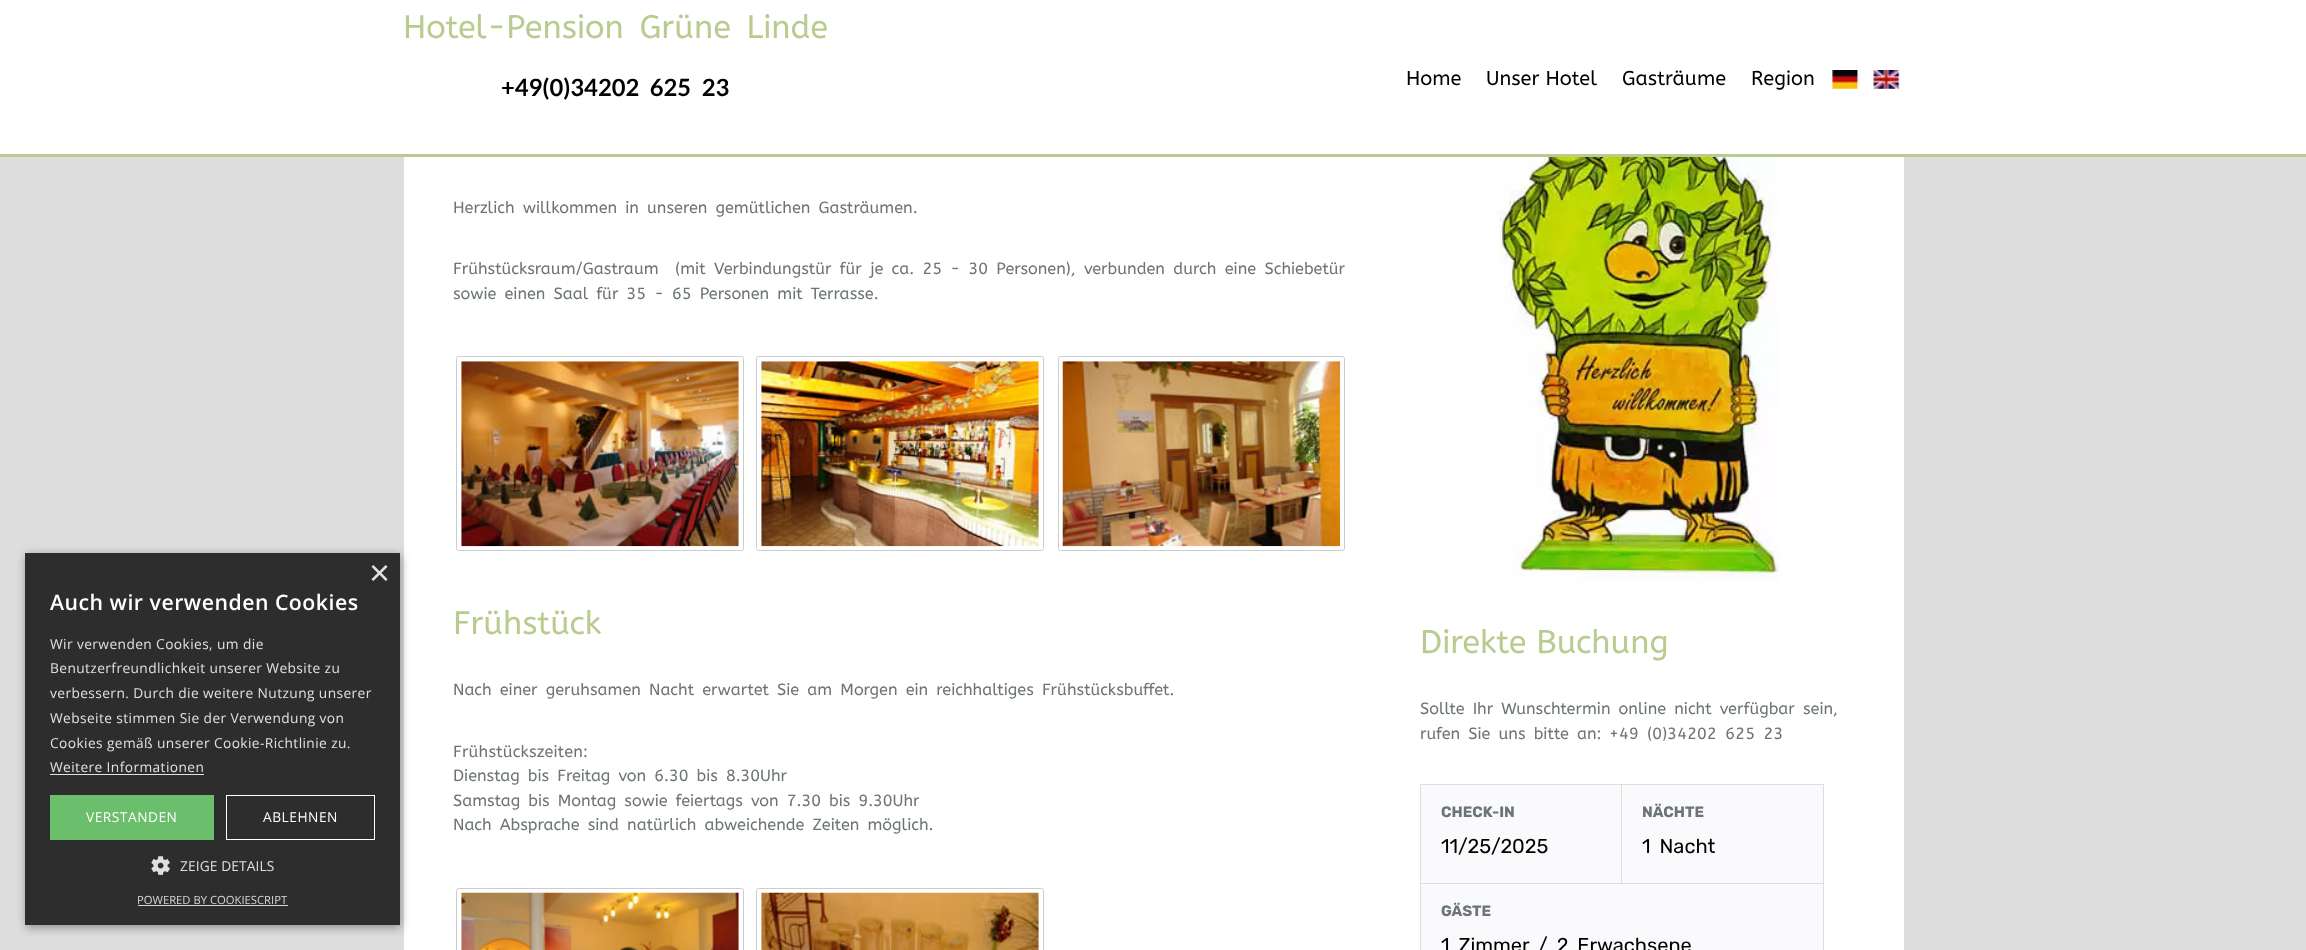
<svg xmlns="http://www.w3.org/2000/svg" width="2306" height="950">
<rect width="100%" height="100%" fill="#ddd"/>
<rect width="2306" height="154" fill="#fff"/>
<rect y="154" width="2306" height="3" fill="#bacb90"/>
<text x="403" y="38" word-spacing="6" style="font-family:ABeeZee;font-size:32.5px;fill:#bacb90">Hotel-Pension Grüne Linde</text>
<text x="501" y="96" word-spacing="6" style="font-family:Lato;font-size:23.75px;font-weight:bold;fill:#000">+49(0)34202 625 23</text>
<text x="1406" y="85" style="font-family:ABeeZee;font-size:20px;fill:#000">Home</text>
<text x="1486" y="85" style="font-family:ABeeZee;font-size:20px;fill:#000">Unser Hotel</text>
<text x="1622" y="85" style="font-family:ABeeZee;font-size:20px;fill:#000">Gasträume</text>
<text x="1751" y="85" style="font-family:ABeeZee;font-size:20px;fill:#000">Region</text>
<image x="1832" y="70" width="27" height="19" href="media/1.png"/>
<image x="1873" y="70" width="27" height="19" href="media/2.png"/>
<rect x="404" y="157" width="1500" height="793" fill="#fff"/>
<rect x="26" y="555" width="375" height="373" fill="#00000059" filter="blur(5px)"/>
<rect x="25" y="553" width="375" height="372" fill="#2d2d2d"/>
<text x="369" y="585" style="font-family:Liberation Sans;font-size:36px;fill:#e0e0e0">×</text>
<text x="50" y="610" style="font-family:Open Sans;font-size:21.25px;font-weight:600;letter-spacing:0.5px;fill:#fff">Auch wir verwenden Cookies</text>
<text x="50" y="649" style="font-family:Open Sans;font-size:13.75px;letter-spacing:0.4px;fill:#e0e0e0">Wir verwenden Cookies, um die</text>
<text x="50" y="673" style="font-family:Open Sans;font-size:13.75px;letter-spacing:0.4px;fill:#e0e0e0">Benutzerfreundlichkeit unserer Website zu</text>
<text x="50" y="698" style="font-family:Open Sans;font-size:13.75px;letter-spacing:0.4px;fill:#e0e0e0">verbessern. Durch die weitere Nutzung unserer</text>
<text x="50" y="723" style="font-family:Open Sans;font-size:13.75px;letter-spacing:0.4px;fill:#e0e0e0">Webseite stimmen Sie der Verwendung von</text>
<text x="50" y="748" style="font-family:Open Sans;font-size:13.75px;letter-spacing:0.4px;fill:#e0e0e0">Cookies gemäß unserer Cookie-Richtlinie zu.</text>
<text x="50" y="772" style="font-family:Open Sans;font-size:13.75px;letter-spacing:0.4px;fill:#e0e0e0">Weitere Informationen</text>
<rect x="50" y="774" width="154" height="1" fill="#e0e0e0"/>
<rect x="50" y="795" width="164" height="45" fill="#6bbe6b"/>
<text x="86" y="822" style="font-family:Open Sans;font-size:13.75px;letter-spacing:0.5px;fill:#fff">VERSTANDEN</text>
<rect x="226.5" y="795.5" width="148" height="44" fill="none" stroke="#fff"/>
<text x="263" y="822" style="font-family:Open Sans;font-size:13.75px;letter-spacing:0.5px;fill:#fff">ABLEHNEN</text>
<image x="151" y="856" width="19" height="19" href="media/3.png"/>
<text x="180" y="871" style="font-family:Open Sans;font-size:13.75px;letter-spacing:0.1px;fill:#e0e0e0">ZEIGE DETAILS</text>
<text x="137" y="904" style="font-family:Open Sans;font-size:11.25px;fill:#d5d5d5">POWERED BY COOKIESCRIPT</text>
<rect x="138" y="905" width="150" height="1" fill="#d5d5d5"/>
<text x="453" y="213" word-spacing="3.25" style="font-family:ABeeZee;font-size:16.25px;fill:#6c7476">Herzlich willkommen in unseren gemütlichen Gasträumen.</text>
<text x="453" y="274" word-spacing="3.5" style="font-family:ABeeZee;font-size:16.25px;fill:#6c7476" xml:space="preserve">Frühstücksraum/Gastraum  (mit Verbindungstür für je ca. 25 - 30 Personen), verbunden durch eine Schiebetür</text>
<text x="453" y="299" word-spacing="3.25" style="font-family:ABeeZee;font-size:16.25px;fill:#6c7476">sowie einen Saal für 35 - 65 Personen mit Terrasse.</text>
<rect x="456.5" y="356.5" width="287" height="194" rx="2" fill="none" stroke="#ccc"/>
<rect x="756.5" y="356.5" width="287" height="194" rx="2" fill="none" stroke="#ccc"/>
<rect x="1058.5" y="356.5" width="286" height="194" rx="2" fill="none" stroke="#ccc"/>
<image x="461" y="361" width="278" height="186" href="media/4.png"/>
<image x="761" y="361" width="278" height="186" href="media/5.png"/>
<image x="1062" y="361" width="278" height="186" href="media/6.png"/>
<text x="453" y="634" style="font-family:ABeeZee;font-size:32.5px;fill:#bacb90">Frühstück</text>
<text x="453" y="695" word-spacing="3.25" style="font-family:ABeeZee;font-size:16.25px;fill:#6c7476">Nach einer geruhsamen Nacht erwartet Sie am Morgen ein reichhaltiges Frühstücksbuffet.</text>
<text x="453" y="757" style="font-family:ABeeZee;font-size:16.25px;letter-spacing:0.2px;fill:#6c7476">Frühstückszeiten:</text>
<text x="453" y="781" word-spacing="3.25" style="font-family:ABeeZee;font-size:16.25px;fill:#6c7476">Dienstag bis Freitag von 6.30 bis 8.30Uhr</text>
<text x="453" y="806" word-spacing="3.25" style="font-family:ABeeZee;font-size:16.25px;fill:#6c7476">Samstag bis Montag sowie feiertags von 7.30 bis 9.30Uhr</text>
<text x="453" y="830" word-spacing="3.25" style="font-family:ABeeZee;font-size:16.25px;fill:#6c7476">Nach Absprache sind natürlich abweichende Zeiten möglich.</text>
<rect x="456.5" y="888.5" width="287" height="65" rx="2" fill="none" stroke="#ccc"/>
<rect x="756.5" y="888.5" width="287" height="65" rx="2" fill="none" stroke="#ccc"/>
<image x="461" y="892" width="278" height="58" href="media/7.png"/>
<image x="761" y="892" width="278" height="58" href="media/8.png"/>
<image x="1497" y="157" width="283" height="425" href="media/9.png"/>
<text x="1420" y="653" style="font-family:ABeeZee;font-size:32.5px;fill:#bacb90">Direkte Buchung</text>
<text x="1420" y="714" word-spacing="3.25" style="font-family:ABeeZee;font-size:16.25px;fill:#6c7476">Sollte Ihr Wunschtermin online nicht verfügbar sein,</text>
<text x="1420" y="739" word-spacing="3.25" style="font-family:ABeeZee;font-size:16.25px;fill:#6c7476">rufen Sie uns bitte an:</text>
<text x="1609" y="739" word-spacing="3.25" style="font-family:ABeeZee;font-size:16.25px;letter-spacing:0.2px;fill:#6c7476">+49 (0)34202 625 23</text>
<rect x="1420.5" y="784.5" width="403" height="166" fill="#fafafc" stroke="#dedede"/>
<text x="1441" y="817" style="font-family:Rubik;font-size:15px;font-weight:bold;fill:#6c7476">CHECK-IN</text>
<text x="1441" y="853" style="font-family:Rubik;font-size:20px;fill:#000">11/25/2025</text>
<rect x="1621" y="785" width="1" height="98" fill="#dedede"/>
<text x="1642" y="817" style="font-family:Rubik;font-size:15px;font-weight:bold;fill:#6c7476">NÄCHTE</text>
<text x="1642" y="853" word-spacing="4" style="font-family:Rubik;font-size:20px;fill:#000">1 Nacht</text>
<rect x="1421" y="883" width="402" height="1" fill="#dedede"/>
<text x="1441" y="916" style="font-family:Rubik;font-size:15px;font-weight:bold;fill:#6c7476">GÄSTE</text>
<text x="1441" y="952" word-spacing="4" style="font-family:Rubik;font-size:20px;fill:#000">1 Zimmer / 2 Erwachsene</text>
</svg>
